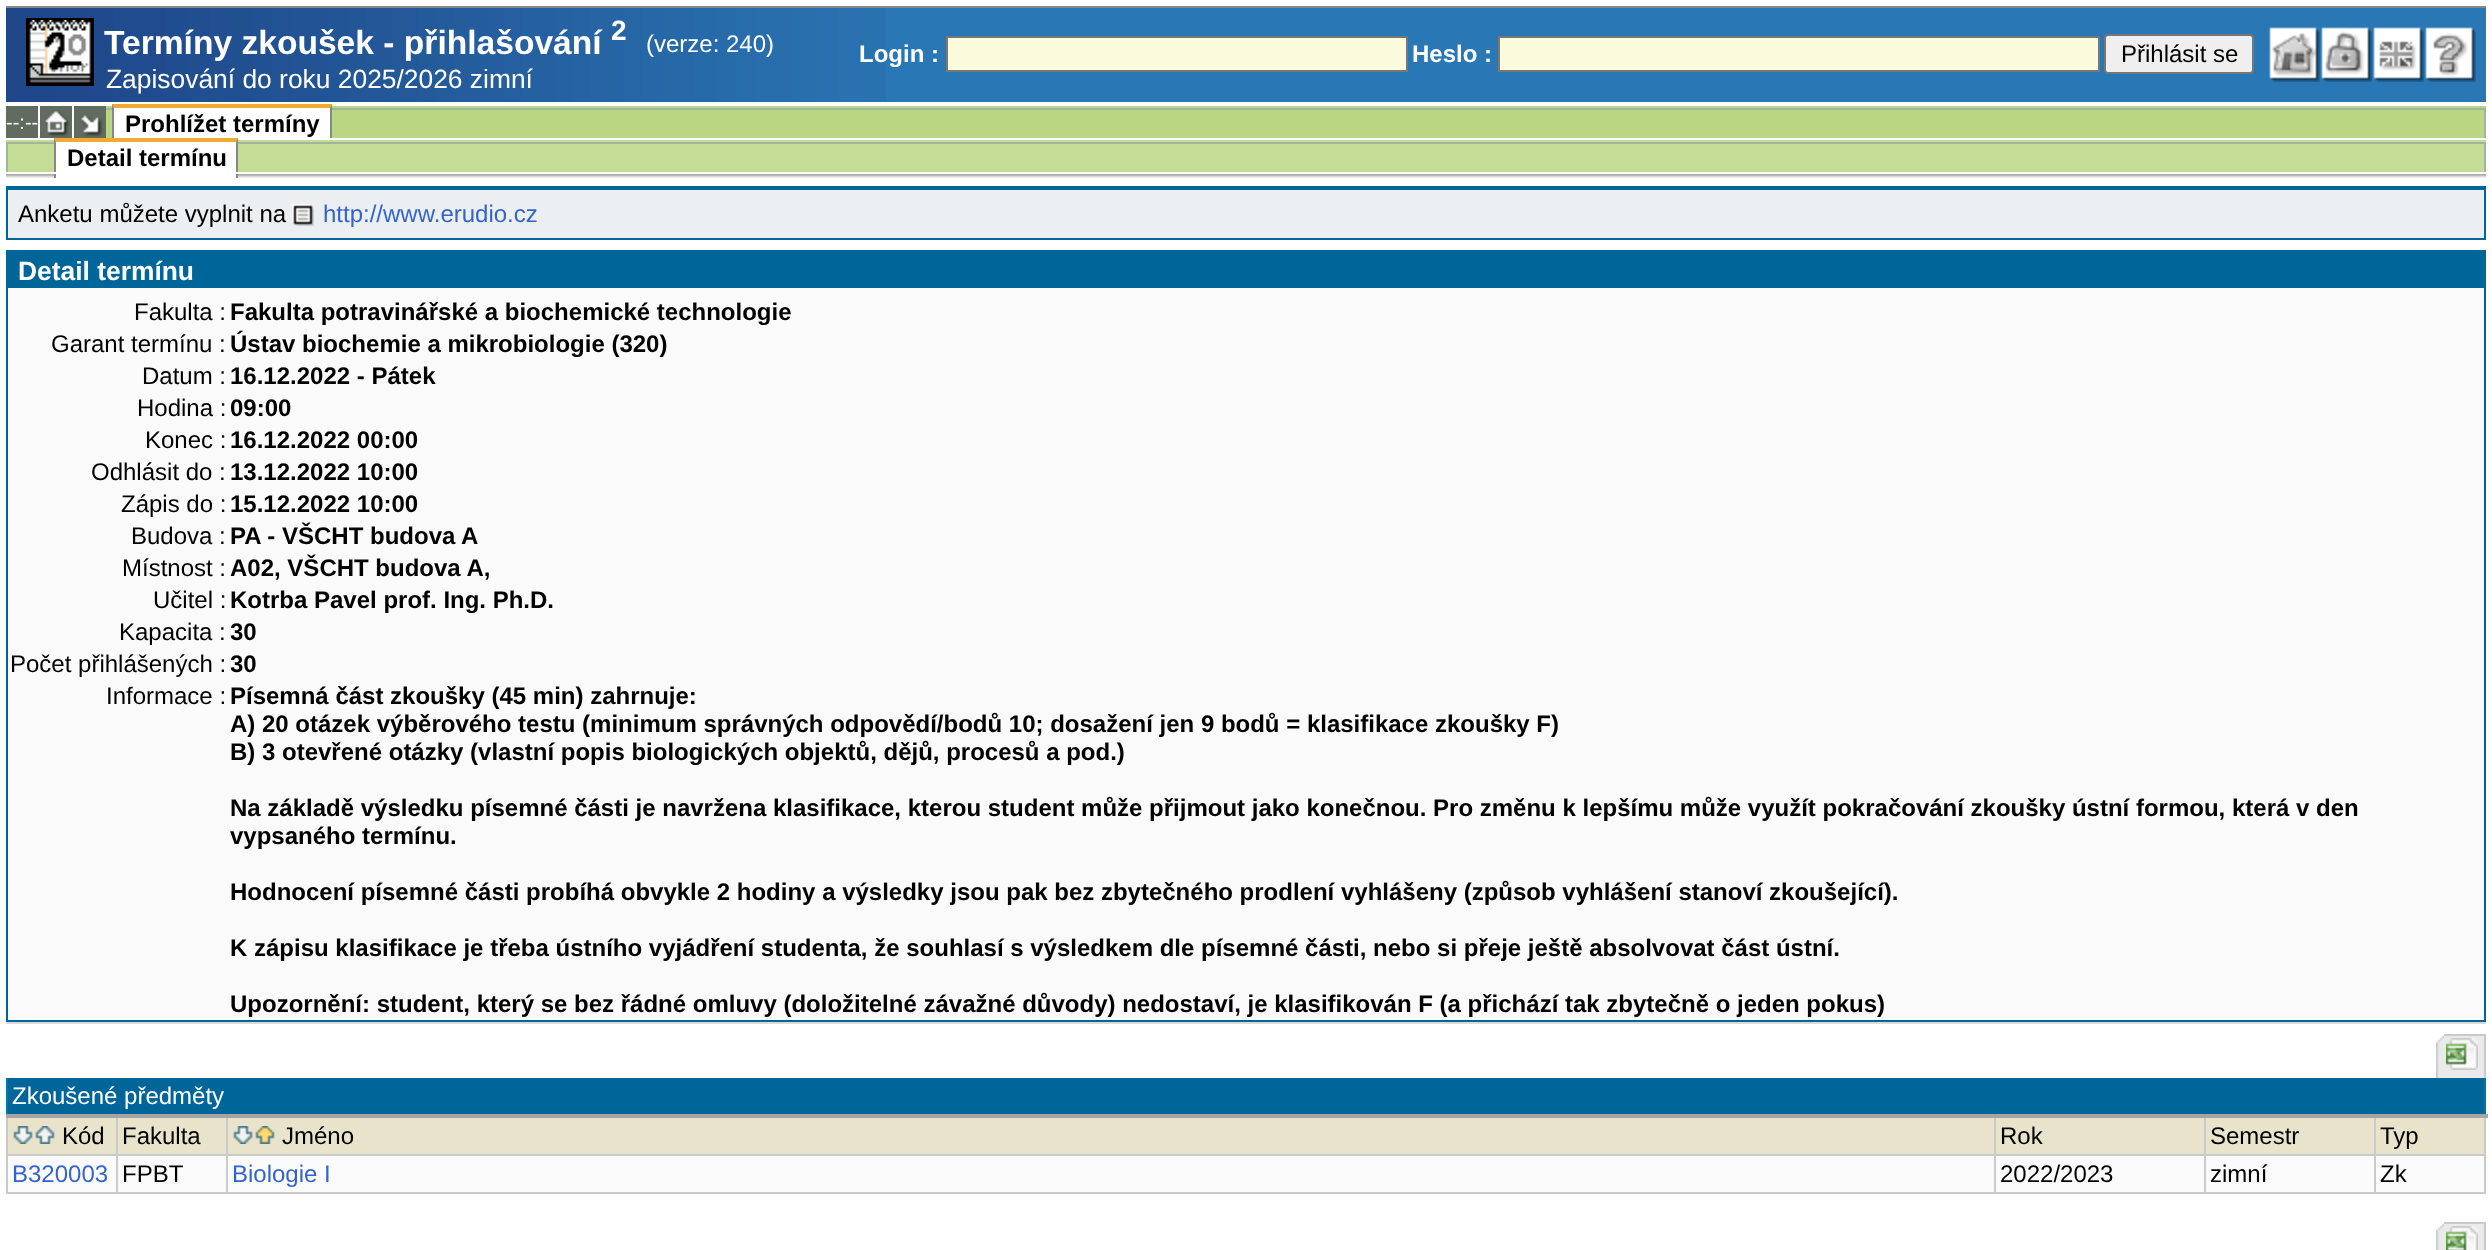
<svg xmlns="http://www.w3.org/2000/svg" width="2492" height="1250">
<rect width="100%" height="100%" fill="#fff"/>
<rect x="886" y="8" width="1600" height="94" fill="#2a77b5"/>
<image x="6" y="8" width="880" height="94" href="media/1.png"/>
<rect x="6" y="6" width="2480" height="2" fill="#888"/>
<rect x="27" y="19" width="66" height="66" fill="none" stroke="#000" stroke-width="2"/>
<image x="28" y="20" width="64" height="64" href="media/2.png"/>
<text x="104" y="54" style="font-family:Liberation Sans;font-size:33.6px;font-weight:bold;fill:#fff">Termíny zkoušek - přihlašování</text>
<text x="611" y="40" style="font-family:Liberation Sans;font-size:28px;font-weight:bold;fill:#fff">2</text>
<text x="646" y="52" style="font-family:Liberation Sans;font-size:24px;fill:#fff">(verze: 240)</text>
<text x="106" y="88" style="font-family:Liberation Sans;font-size:26.4px;fill:#fff">Zapisování do roku 2025/2026 zimní</text>
<text x="859" y="62" style="font-family:Liberation Sans;font-size:24px;font-weight:bold;fill:#fff">Login :</text>
<rect x="947" y="37" width="460" height="34" fill="#fafadc" stroke="#777" stroke-width="2"/>
<text x="1412" y="62" style="font-family:Liberation Sans;font-size:24px;font-weight:bold;fill:#fff">Heslo :</text>
<rect x="1499" y="37" width="600" height="34" fill="#fafadc" stroke="#777" stroke-width="2"/>
<rect x="2105" y="35" width="148" height="38" rx="3" fill="#efefef" stroke="#767676" stroke-width="2"/>
<text x="2121" y="62" style="font-family:Liberation Sans;font-size:24px;fill:#000">Přihlásit se</text>
<image x="2269" y="27" width="51" height="55" href="media/3.png"/>
<image x="2321" y="27" width="51" height="55" href="media/4.png"/>
<image x="2373" y="27" width="51" height="55" href="media/5.png"/>
<image x="2425" y="27" width="51" height="55" href="media/6.png"/>
<rect x="106" y="104" width="2380" height="34" fill="#bad683"/>
<rect x="6" y="106" width="32" height="32" fill="#616b60"/>
<text x="6" y="129" style="font-family:Liberation Sans;font-size:20px;fill:#fff">--:--</text>
<rect x="40" y="106" width="32" height="32" fill="#616b60"/>
<image x="45" y="111" width="25" height="26" href="media/7.png"/>
<rect x="74" y="106" width="32" height="32" fill="#616b60"/>
<image x="81" y="115" width="22" height="22" href="media/8.png"/>
<rect x="106" y="104" width="6" height="2" fill="#fff"/>
<rect x="106" y="108" width="6" height="2" fill="#9eb69b"/>
<path d="M112 104h220l-2 4h-216z" fill="#f2a92f"/>
<path d="M332 104v34h-2v-30z" fill="#888"/>
<path d="M112 138v-34l2 4v30z" fill="#888"/>
<rect x="114" y="108" width="216" height="30" fill="#fff"/>
<text x="125" y="132" style="font-family:Liberation Sans;font-size:24px;font-weight:bold;fill:#000">Prohlížet termíny</text>
<rect x="332" y="104" width="2154" height="2" fill="#fff"/>
<rect x="332" y="108" width="2154" height="2" fill="#9eb69b"/>
<rect x="2484" y="108" width="2" height="30" fill="#9eb69b"/>
<rect x="6" y="138" width="2480" height="34" fill="#c4dc95"/>
<rect x="6" y="138" width="48" height="2" fill="#fff"/>
<rect x="6" y="142" width="48" height="2" fill="#9eb69b"/>
<rect x="6" y="142" width="2" height="30" fill="#9eb69b"/>
<path d="M54 138h184l-2 4h-180z" fill="#f2a92f"/>
<path d="M238 138v34h-2v-30z" fill="#888"/>
<path d="M54 172v-34l2 4v30z" fill="#888"/>
<rect x="56" y="142" width="180" height="30" fill="#fff"/>
<text x="67" y="166" style="font-family:Liberation Sans;font-size:24px;font-weight:bold;fill:#000">Detail termínu</text>
<rect x="238" y="138" width="2248" height="2" fill="#fff"/>
<rect x="238" y="142" width="2248" height="2" fill="#9eb69b"/>
<rect x="2484" y="142" width="2" height="30" fill="#9eb69b"/>
<image x="6" y="174" width="48" height="4" href="media/9.png"/>
<rect x="236" y="174" width="2" height="4" fill="#888"/>
<rect x="54" y="174" width="2" height="4" fill="#888"/>
<image x="238" y="174" width="2248" height="4" href="media/10.png"/>
<rect x="8" y="190" width="2476" height="48" fill="#eceff1"/>
<rect x="6" y="186" width="2480" height="4" fill="#069"/>
<rect x="2484" y="186" width="2" height="54" fill="#069"/>
<rect x="6" y="238" width="2480" height="2" fill="#069"/>
<rect x="6" y="186" width="2" height="54" fill="#069"/>
<text x="18" y="222" style="font-family:Liberation Sans;font-size:24px;fill:#000">Anketu můžete vyplnit na</text>
<image x="292" y="204" width="22" height="22" href="media/11.png"/>
<text x="323" y="222" style="font-family:Liberation Sans;font-size:24px;fill:#3364ca">http://www.erudio.cz</text>
<rect x="8" y="288" width="2476" height="732" fill="#fafafa"/>
<rect x="6" y="250" width="2480" height="4" fill="#069"/>
<rect x="2484" y="250" width="2" height="772" fill="#069"/>
<rect x="6" y="1020" width="2480" height="2" fill="#069"/>
<rect x="6" y="250" width="2" height="772" fill="#069"/>
<rect x="8" y="254" width="2476" height="34" fill="#069"/>
<text x="18" y="280" style="font-family:Liberation Sans;font-size:26.4px;font-weight:bold;fill:#fff">Detail termínu</text>
<text x="134" y="320" style="font-family:Liberation Sans;font-size:24px;fill:#000">Fakulta :</text>
<text x="230" y="320" style="font-family:Liberation Sans;font-size:24px;font-weight:bold;fill:#000">Fakulta potravinářské a biochemické technologie</text>
<text x="51" y="352" style="font-family:Liberation Sans;font-size:24px;fill:#000">Garant termínu :</text>
<text x="230" y="352" style="font-family:Liberation Sans;font-size:24px;font-weight:bold;fill:#000">Ústav biochemie a mikrobiologie (320)</text>
<text x="142" y="384" style="font-family:Liberation Sans;font-size:24px;fill:#000">Datum :</text>
<text x="230" y="384" style="font-family:Liberation Sans;font-size:24px;font-weight:bold;fill:#000">16.12.2022 - Pátek</text>
<text x="137" y="416" style="font-family:Liberation Sans;font-size:24px;fill:#000">Hodina :</text>
<text x="230" y="416" style="font-family:Liberation Sans;font-size:24px;font-weight:bold;fill:#000">09:00</text>
<text x="145" y="448" style="font-family:Liberation Sans;font-size:24px;fill:#000">Konec :</text>
<text x="230" y="448" style="font-family:Liberation Sans;font-size:24px;font-weight:bold;fill:#000">16.12.2022 00:00</text>
<text x="91" y="480" style="font-family:Liberation Sans;font-size:24px;fill:#000">Odhlásit do :</text>
<text x="230" y="480" style="font-family:Liberation Sans;font-size:24px;font-weight:bold;fill:#000">13.12.2022 10:00</text>
<text x="121" y="512" style="font-family:Liberation Sans;font-size:24px;fill:#000">Zápis do :</text>
<text x="230" y="512" style="font-family:Liberation Sans;font-size:24px;font-weight:bold;fill:#000">15.12.2022 10:00</text>
<text x="131" y="544" style="font-family:Liberation Sans;font-size:24px;fill:#000">Budova :</text>
<text x="230" y="544" style="font-family:Liberation Sans;font-size:24px;font-weight:bold;fill:#000">PA - VŠCHT budova A</text>
<text x="122" y="576" style="font-family:Liberation Sans;font-size:24px;fill:#000">Místnost :</text>
<text x="230" y="576" style="font-family:Liberation Sans;font-size:24px;font-weight:bold;fill:#000">A02, VŠCHT budova A,</text>
<text x="153" y="608" style="font-family:Liberation Sans;font-size:24px;fill:#000">Učitel :</text>
<text x="230" y="608" style="font-family:Liberation Sans;font-size:24px;font-weight:bold;fill:#000">Kotrba Pavel prof. Ing. Ph.D.</text>
<text x="119" y="640" style="font-family:Liberation Sans;font-size:24px;fill:#000">Kapacita :</text>
<text x="230" y="640" style="font-family:Liberation Sans;font-size:24px;font-weight:bold;fill:#000">30</text>
<text x="10" y="672" style="font-family:Liberation Sans;font-size:24px;fill:#000">Počet přihlášených :</text>
<text x="230" y="672" style="font-family:Liberation Sans;font-size:24px;font-weight:bold;fill:#000">30</text>
<text x="106" y="704" style="font-family:Liberation Sans;font-size:24px;fill:#000">Informace :</text>
<text x="230" y="704" style="font-family:Liberation Sans;font-size:24px;font-weight:bold;fill:#000">Písemná část zkoušky (45 min) zahrnuje:</text>
<text x="230" y="732" style="font-family:Liberation Sans;font-size:24px;font-weight:bold;fill:#000">A) 20 otázek výběrového testu (minimum správných odpovědí/bodů 10; dosažení jen 9 bodů = klasifikace zkoušky F)</text>
<text x="230" y="760" style="font-family:Liberation Sans;font-size:24px;font-weight:bold;fill:#000">B) 3 otevřené otázky (vlastní popis biologických objektů, dějů, procesů a pod.)</text>
<text x="230" y="816" style="font-family:Liberation Sans;font-size:24px;font-weight:bold;fill:#000">Na základě výsledku písemné části je navržena klasifikace, kterou student může přijmout jako konečnou. Pro změnu k lepšímu může využít pokračování zkoušky ústní formou, která v den</text>
<text x="230" y="844" style="font-family:Liberation Sans;font-size:24px;font-weight:bold;fill:#000">vypsaného termínu.</text>
<text x="230" y="900" style="font-family:Liberation Sans;font-size:24px;font-weight:bold;fill:#000">Hodnocení písemné části probíhá obvykle 2 hodiny a výsledky jsou pak bez zbytečného prodlení vyhlášeny (způsob vyhlášení stanoví zkoušející).</text>
<text x="230" y="956" style="font-family:Liberation Sans;font-size:24px;font-weight:bold;fill:#000">K zápisu klasifikace je třeba ústního vyjádření studenta, že souhlasí s výsledkem dle písemné části, nebo si přeje ještě absolvovat část ústní.</text>
<text x="230" y="1012" style="font-family:Liberation Sans;font-size:24px;font-weight:bold;fill:#000">Upozornění: student, který se bez řádné omluvy (doložitelné závažné důvody) nedostaví, je klasifikován F (a přichází tak zbytečně o jeden pokus)</text>
<rect x="6" y="1022" width="2480" height="2" fill="#dadada"/>
<image x="2436" y="1035" width="8" height="43" href="media/12.png"/>
<rect x="2444" y="1036" width="40" height="42" fill="#eaeaea"/>
<rect x="2444" y="1034" width="42" height="2" fill="#cacaca"/>
<rect x="2484" y="1034" width="2" height="44" fill="#cacaca"/>
<image x="2446" y="1038" width="32" height="32" href="media/13.png"/>
<rect x="8" y="1078" width="2476" height="36" fill="#069"/>
<rect x="6" y="1154" width="2480" height="2" fill="#cacaca"/>
<rect x="2484" y="1116" width="2" height="78" fill="#cacaca"/>
<rect x="2484" y="1078" width="2" height="40" fill="#07a"/>
<rect x="6" y="1192" width="2480" height="2" fill="#cacaca"/>
<rect x="6" y="1116" width="2" height="78" fill="#cacaca"/>
<rect x="6" y="1078" width="2" height="40" fill="#07a"/>
<rect x="8" y="1118" width="2476" height="36" fill="#eae3cc"/>
<rect x="8" y="1156" width="2476" height="36" fill="#fbfbfb"/>
<rect x="116" y="1116" width="2" height="78" fill="#cacaca"/>
<rect x="226" y="1116" width="2" height="78" fill="#cacaca"/>
<rect x="1994" y="1116" width="2" height="78" fill="#cacaca"/>
<rect x="2204" y="1116" width="2" height="78" fill="#cacaca"/>
<rect x="2374" y="1116" width="2" height="78" fill="#cacaca"/>
<rect x="6" y="1114" width="2482" height="4" fill="#a5a5a5"/>
<text x="12" y="1104" style="font-family:Liberation Sans;font-size:24px;fill:#fff">Zkoušené předměty</text>
<image x="13" y="1126" width="20" height="18" href="media/14.png"/>
<image x="35" y="1126" width="20" height="18" href="media/15.png"/>
<text x="62" y="1144" style="font-family:Liberation Sans;font-size:24px;fill:#000">Kód</text>
<text x="122" y="1144" style="font-family:Liberation Sans;font-size:24px;fill:#000">Fakulta</text>
<image x="233" y="1126" width="20" height="18" href="media/14.png"/>
<image x="255" y="1126" width="20" height="18" href="media/16.png"/>
<text x="282" y="1144" style="font-family:Liberation Sans;font-size:24px;fill:#000">Jméno</text>
<text x="2000" y="1144" style="font-family:Liberation Sans;font-size:24px;fill:#000">Rok</text>
<text x="2210" y="1144" style="font-family:Liberation Sans;font-size:24px;fill:#000">Semestr</text>
<text x="2380" y="1144" style="font-family:Liberation Sans;font-size:24px;fill:#000">Typ</text>
<text x="12" y="1182" style="font-family:Liberation Sans;font-size:24px;fill:#3364ca">B320003</text>
<text x="122" y="1182" style="font-family:Liberation Sans;font-size:24px;fill:#000">FPBT</text>
<text x="232" y="1182" style="font-family:Liberation Sans;font-size:24px;fill:#3364ca">Biologie I</text>
<text x="2000" y="1182" style="font-family:Liberation Sans;font-size:24px;fill:#000">2022/2023</text>
<text x="2210" y="1182" style="font-family:Liberation Sans;font-size:24px;fill:#000">zimní</text>
<text x="2380" y="1182" style="font-family:Liberation Sans;font-size:24px;fill:#000">Zk</text>
<image x="2436" y="1223" width="8" height="27" href="media/17.png"/>
<rect x="2444" y="1224" width="40" height="26" fill="#eaeaea"/>
<rect x="2444" y="1222" width="42" height="2" fill="#cacaca"/>
<rect x="2484" y="1222" width="2" height="28" fill="#cacaca"/>
<image x="2446" y="1226" width="32" height="24" href="media/18.png"/>
</svg>
